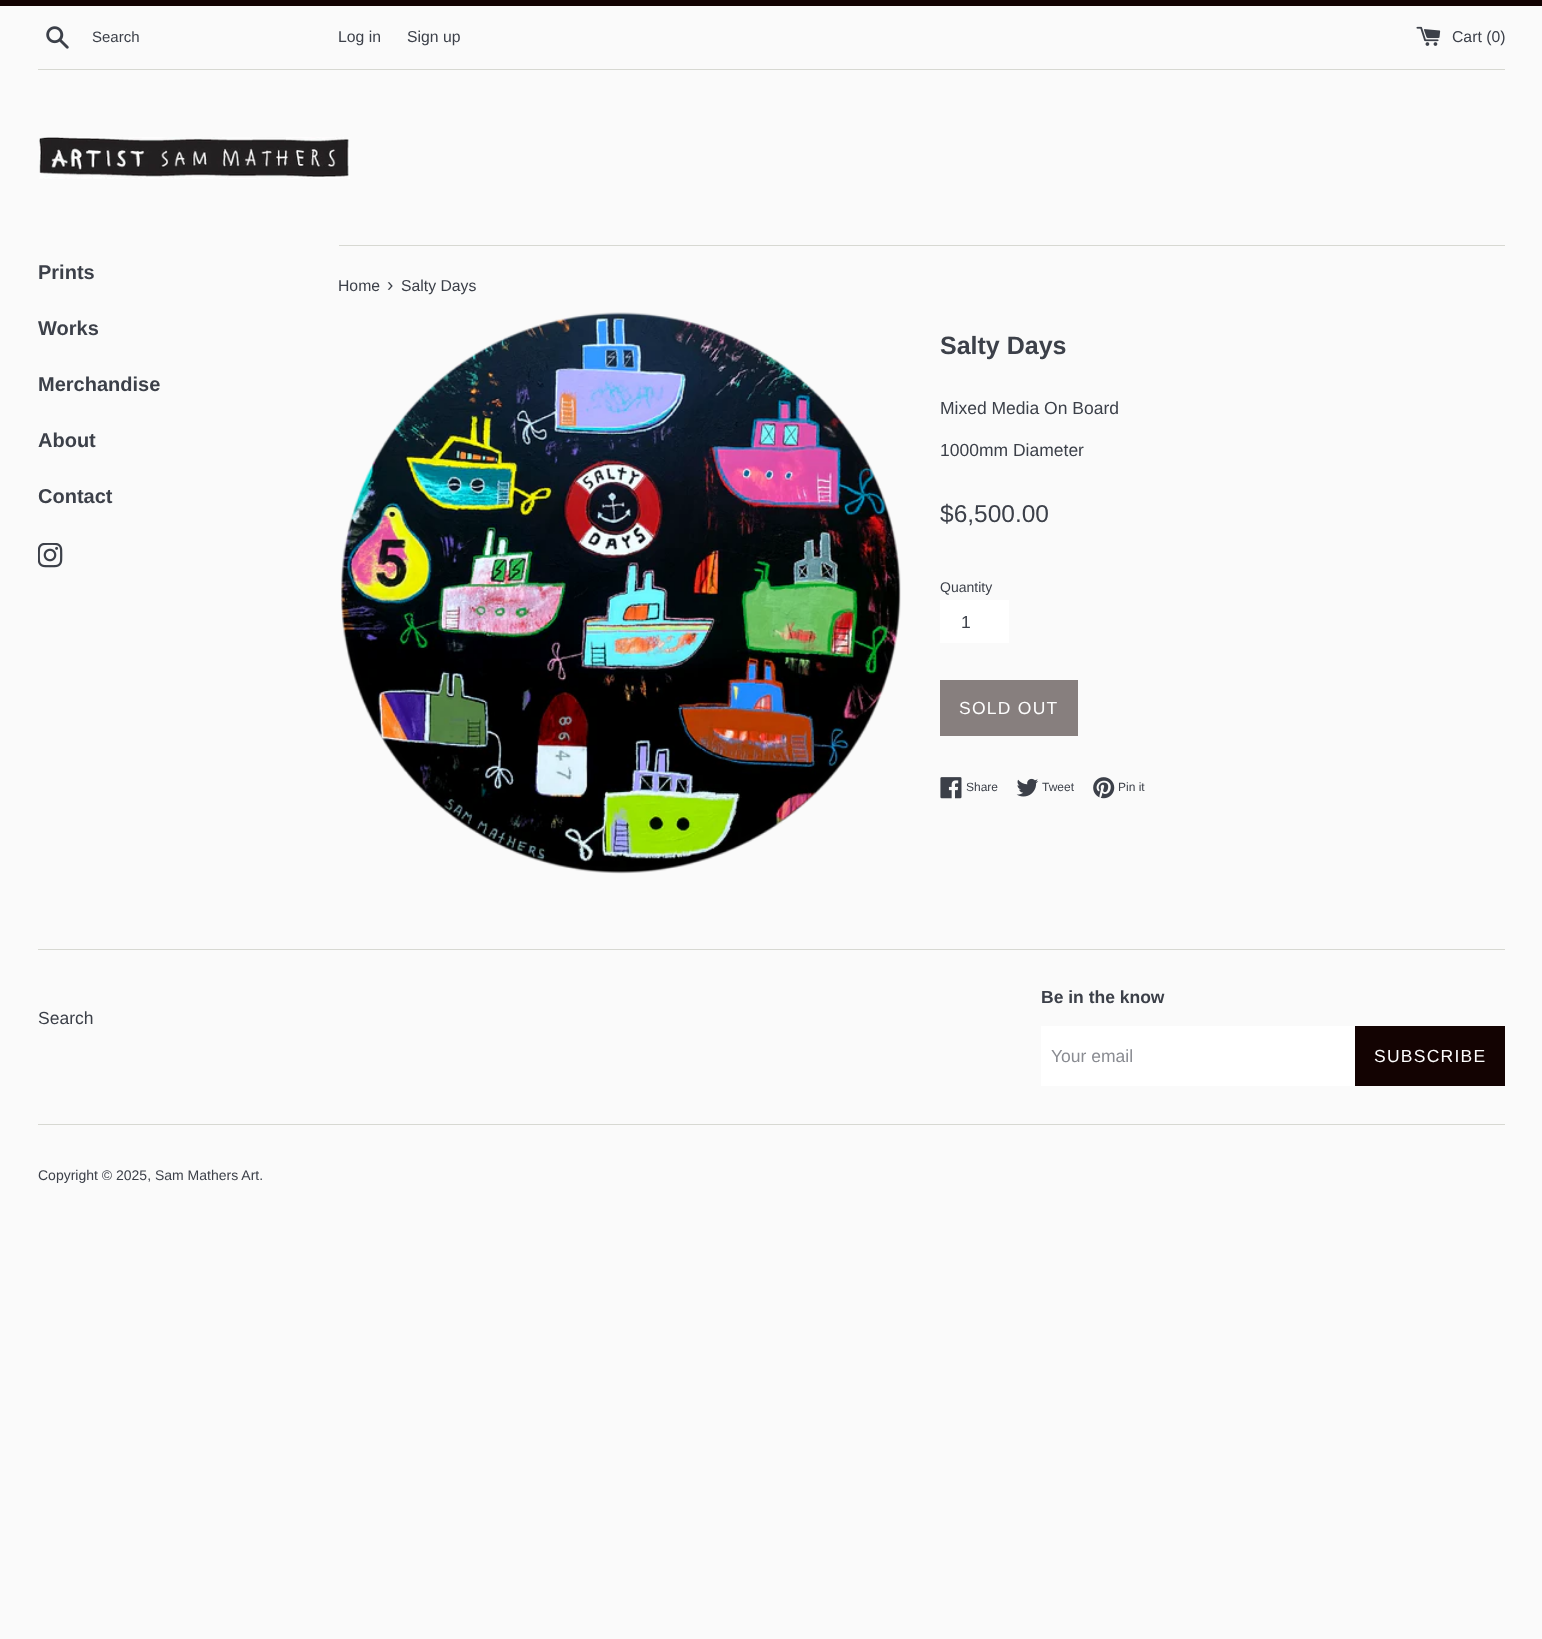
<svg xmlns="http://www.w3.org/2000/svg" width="1542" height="1639">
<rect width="100%" height="100%" fill="#fafafa"/>
<rect width="1542" height="6" fill="#130302"/>
<image x="46" y="26" width="23" height="23" href="media/1.png"/>
<text x="92" y="42" style="font-family:Liberation Sans;font-size:15px;fill:#3c4049">Search</text>
<text x="338" y="42" style="font-family:Liberation Sans;font-size:15.75px;fill:#3c4049">Log in</text>
<text x="407" y="42" style="font-family:Liberation Sans;font-size:15.75px;fill:#3c4049">Sign up</text>
<image x="1416" y="26" width="25" height="20" href="media/2.png"/>
<text x="1452" y="42" style="font-family:Liberation Sans;font-size:15.75px;fill:#3c4049">Cart (0)</text>
<rect x="38" y="69" width="1467" height="1" fill="#d7d8d2"/>
<image x="39" y="137" width="311" height="42" href="media/3.png"/>
<text x="38" y="279" style="font-family:Liberation Sans;font-size:20px;font-weight:bold;fill:#3c4049">Prints</text>
<text x="38" y="335" style="font-family:Liberation Sans;font-size:20px;font-weight:bold;fill:#3c4049">Works</text>
<text x="38" y="391" style="font-family:Liberation Sans;font-size:20px;font-weight:bold;fill:#3c4049">Merchandise</text>
<text x="38" y="447" style="font-family:Liberation Sans;font-size:20px;font-weight:bold;fill:#3c4049">About</text>
<text x="38" y="503" style="font-family:Liberation Sans;font-size:20px;font-weight:bold;fill:#3c4049">Contact</text>
<image x="38" y="543" width="25" height="25" href="media/4.png"/>
<rect x="339" y="245" width="1166" height="1" fill="#d7d8d2"/>
<text x="338" y="291" style="font-family:Liberation Sans;font-size:15.75px;fill:#3c4049">Home</text>
<text x="387" y="291" style="font-family:Liberation Sans;font-size:19px;fill:#3c4049">›</text>
<text x="401" y="291" style="font-family:Liberation Sans;font-size:15.75px;fill:#3c4049">Salty Days</text>
<image x="341" y="312" width="560" height="562" href="media/5.png"/>
<text x="940" y="354" style="font-family:Liberation Sans;font-size:25px;font-weight:bold;fill:#3c4049">Salty Days</text>
<text x="940" y="414" style="font-family:Liberation Sans;font-size:17.5px;fill:#3c4049">Mixed Media On Board</text>
<text x="940" y="456" style="font-family:Liberation Sans;font-size:17.5px;fill:#3c4049">1000mm Diameter</text>
<text x="940" y="522" style="font-family:Liberation Sans;font-size:24.5px;fill:#3c4049">$6,500.00</text>
<text x="940" y="592" style="font-family:Liberation Sans;font-size:14px;fill:#3c4049">Quantity</text>
<rect x="940" y="600" width="69" height="43" fill="#fff"/>
<text x="961" y="628" style="font-family:Liberation Sans;font-size:17.5px;fill:#3c4049">1</text>
<rect x="940" y="680" width="138" height="56" fill="#877f7e"/>
<text x="959" y="714" style="font-family:Liberation Sans;font-size:17.5px;letter-spacing:1.25px;fill:#fdfdfd">SOLD OUT</text>
<image x="940" y="777" width="22" height="22" href="media/6.png"/>
<text x="966" y="791" style="font-family:Liberation Sans;font-size:12px;fill:#3c4049">Share</text>
<image x="1016" y="778" width="23" height="19" href="media/7.png"/>
<text x="1042" y="791" style="font-family:Liberation Sans;font-size:12px;fill:#3c4049">Tweet</text>
<image x="1093" y="777" width="22" height="22" href="media/8.png"/>
<text x="1118" y="791" style="font-family:Liberation Sans;font-size:12px;fill:#3c4049">Pin it</text>
<rect x="38" y="949" width="1467" height="1" fill="#d7d8d2"/>
<text x="38" y="1024" style="font-family:Liberation Sans;font-size:17.5px;fill:#3c4049">Search</text>
<text x="1041" y="1003" style="font-family:Liberation Sans;font-size:17.5px;font-weight:bold;fill:#3c4049">Be in the know</text>
<rect x="1041" y="1026" width="314" height="60" fill="#fff"/>
<text x="1051" y="1062" style="font-family:Liberation Sans;font-size:17.5px;fill:#8a8c92">Your email</text>
<rect x="1355" y="1026" width="150" height="60" fill="#130302"/>
<text x="1374" y="1062" style="font-family:Liberation Sans;font-size:17.5px;letter-spacing:1.25px;fill:#fdfdfd">SUBSCRIBE</text>
<rect x="38" y="1124" width="1467" height="1" fill="#d7d8d2"/>
<text x="38" y="1180" style="font-family:Liberation Sans;font-size:14px;fill:#3c4049">Copyright © 2025, Sam Mathers Art.</text>
</svg>
